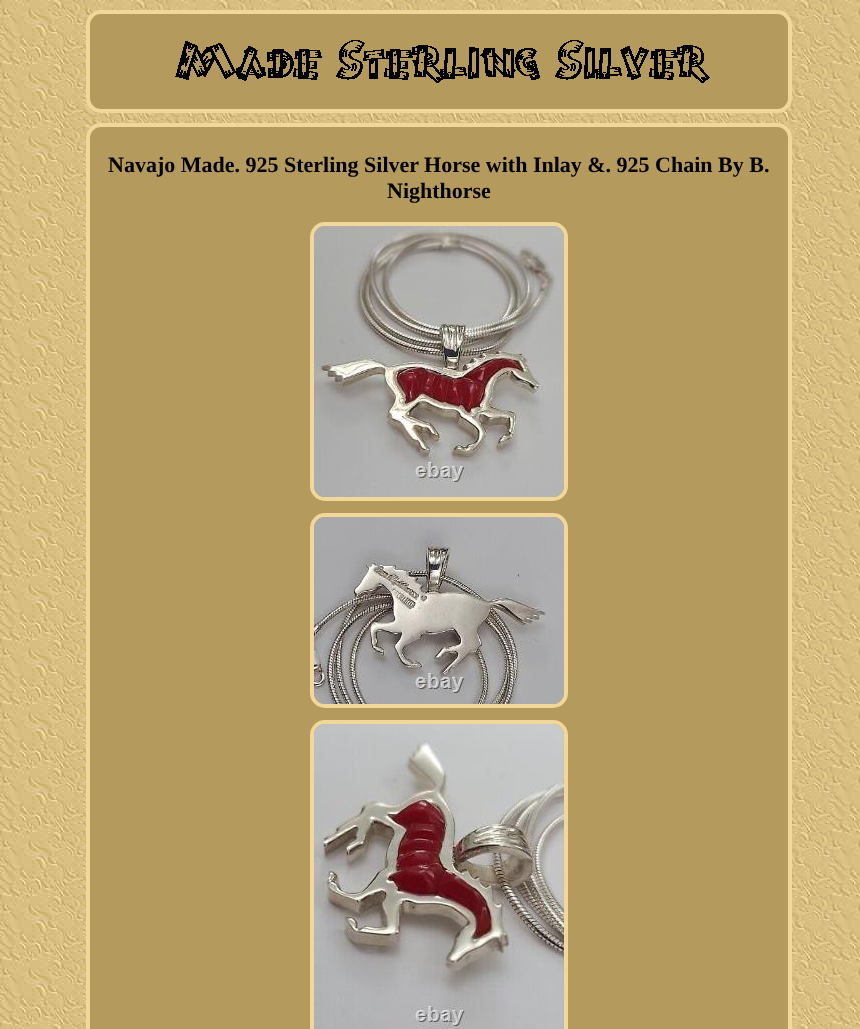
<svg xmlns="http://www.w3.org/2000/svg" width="860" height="1029">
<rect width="100%" height="100%" fill="#fff"/>
<image x="0" y="0" width="860" height="1029" href="media/1.png"/>
<rect x="88" y="12" width="702" height="99" rx="13" fill="#b49a5d" stroke="#f1d79a" stroke-width="4"/>
<image x="175" y="40" width="535" height="43" href="media/2.png"/>
<rect x="88" y="125" width="702" height="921" rx="13" fill="#b49a5d" stroke="#f1d79a" stroke-width="4"/>
<text x="108" y="172" style="font-family:Liberation Serif;font-size:22px;font-weight:bold;fill:#000">Navajo Made. 925 Sterling Silver Horse with Inlay &amp;. 925 Chain By B.</text>
<text x="387" y="198" style="font-family:Liberation Serif;font-size:22px;font-weight:bold;fill:#000">Nighthorse</text>
<rect x="312" y="224" width="254" height="275" rx="13" fill="none" stroke="#f1d79a" stroke-width="4"/>
<image x="314" y="226" width="250" height="271" href="media/3.png"/>
<rect x="312" y="515" width="254" height="191" rx="13" fill="none" stroke="#f1d79a" stroke-width="4"/>
<image x="314" y="517" width="250" height="187" href="media/4.png"/>
<rect x="312" y="722" width="254" height="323" rx="13" fill="none" stroke="#f1d79a" stroke-width="4"/>
<image x="314" y="724" width="250" height="305" href="media/5.png"/>
</svg>
